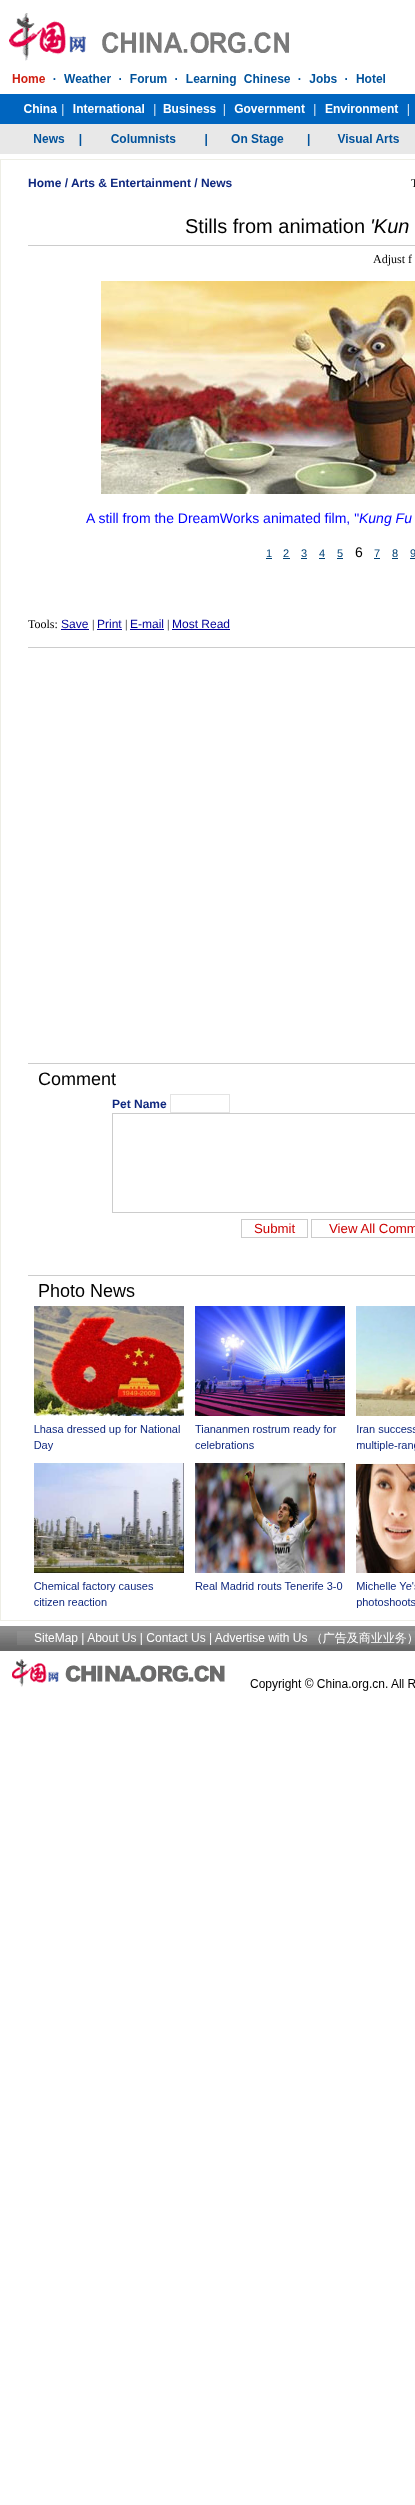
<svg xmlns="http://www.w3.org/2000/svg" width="415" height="2505">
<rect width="100%" height="100%" fill="#fff"/>
<image x="0" y="13" width="415" height="141" href="media/1.png"/>
<rect x="0.5" y="159.5" width="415" height="1461" fill="none" stroke="#eeeee6"/>
<text x="28" y="187" style="font-family:Liberation Sans;font-size:12px;font-weight:bold;fill:#0f287f">Home / Arts &amp; Entertainment / News</text>
<text x="411" y="187" style="font-family:Liberation Serif;font-size:12px;fill:#000">T</text>
<text x="185" y="233" style="font-family:Liberation Sans;font-size:20px;fill:#000">Stills from animation</text>
<text x="370" y="233" style="font-family:Liberation Sans;font-size:20px;font-style:italic;fill:#000">'Kun</text>
<rect x="28" y="245" width="387" height="1" fill="#ccc"/>
<text x="373" y="263" style="font-family:Liberation Serif;font-size:12px;fill:#000">Adjust f</text>
<image x="101" y="281" width="314" height="213" href="media/2.png"/>
<text x="86" y="523" style="font-family:Liberation Sans;font-size:14px;fill:#00f">A still from the DreamWorks animated film, "</text>
<text x="359" y="523" style="font-family:Liberation Sans;font-size:14px;font-style:italic;fill:#00f">Kung Fu</text>
<text x="266" y="557" style="font-family:Liberation Sans;font-size:11px;fill:#004276">1</text>
<rect x="266" y="558" width="6" height="1" fill="#004276"/>
<text x="283" y="557" style="font-family:Liberation Sans;font-size:11px;fill:#004276">2</text>
<rect x="283" y="558" width="7" height="1" fill="#004276"/>
<text x="301" y="557" style="font-family:Liberation Sans;font-size:11px;fill:#004276">3</text>
<rect x="301" y="558" width="6" height="1" fill="#004276"/>
<text x="319" y="557" style="font-family:Liberation Sans;font-size:11px;fill:#004276">4</text>
<rect x="319" y="558" width="6" height="1" fill="#004276"/>
<text x="337" y="557" style="font-family:Liberation Sans;font-size:11px;fill:#004276">5</text>
<rect x="337" y="558" width="6" height="1" fill="#004276"/>
<text x="355" y="557" style="font-family:Liberation Sans;font-size:14px;fill:#000">6</text>
<text x="374" y="557" style="font-family:Liberation Sans;font-size:11px;fill:#004276">7</text>
<rect x="374" y="558" width="6" height="1" fill="#004276"/>
<text x="392" y="557" style="font-family:Liberation Sans;font-size:11px;fill:#004276">8</text>
<rect x="392" y="558" width="6" height="1" fill="#004276"/>
<text x="410" y="557" style="font-family:Liberation Sans;font-size:11px;fill:#004276">9</text>
<rect x="410" y="558" width="5" height="1" fill="#004276"/>
<text x="28" y="628" style="font-family:Liberation Serif;font-size:12px;fill:#000">Tools:</text>
<text x="61" y="628" style="font-family:Liberation Sans;font-size:12px;fill:#009">Save</text>
<rect x="61" y="629" width="28" height="1" fill="#009"/>
<text x="92" y="628" style="font-family:Liberation Serif;font-size:12px;fill:#000">|</text>
<text x="97" y="628" style="font-family:Liberation Sans;font-size:12px;fill:#009">Print</text>
<rect x="97" y="629" width="25" height="1" fill="#009"/>
<text x="125" y="628" style="font-family:Liberation Serif;font-size:12px;fill:#000">|</text>
<text x="130" y="628" style="font-family:Liberation Sans;font-size:12px;fill:#009">E-mail</text>
<rect x="130" y="629" width="34" height="1" fill="#009"/>
<text x="167" y="628" style="font-family:Liberation Serif;font-size:12px;fill:#000">|</text>
<text x="172" y="628" style="font-family:Liberation Sans;font-size:12px;fill:#009">Most Read</text>
<rect x="172" y="629" width="58" height="1" fill="#009"/>
<rect x="28" y="647" width="387" height="1" fill="#ccc"/>
<rect x="28" y="1063" width="387" height="1" fill="#ccc"/>
<text x="38" y="1085" style="font-family:Liberation Sans;font-size:18px;fill:#000">Comment</text>
<text x="112" y="1108" style="font-family:Liberation Sans;font-size:12px;font-weight:bold;fill:#0f287f">Pet Name</text>
<rect x="170.5" y="1094.5" width="59" height="18" fill="none" stroke="#e4e4e4"/>
<rect x="112.5" y="1113.5" width="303" height="99" fill="none" stroke="#ccc"/>
<rect x="241.5" y="1219.5" width="66" height="18" fill="none" stroke="#ccc"/>
<text x="254" y="1233" style="font-family:Liberation Sans;font-size:13.25px;fill:#c00">Submit</text>
<rect x="311.5" y="1219.5" width="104" height="18" fill="none" stroke="#ccc"/>
<text x="329" y="1233" style="font-family:Liberation Sans;font-size:13.25px;fill:#c00">View All Comm</text>
<image x="28" y="1275" width="387" height="333" href="media/3.png"/>
<image x="0" y="1626" width="415" height="65" href="media/4.png"/>
</svg>
